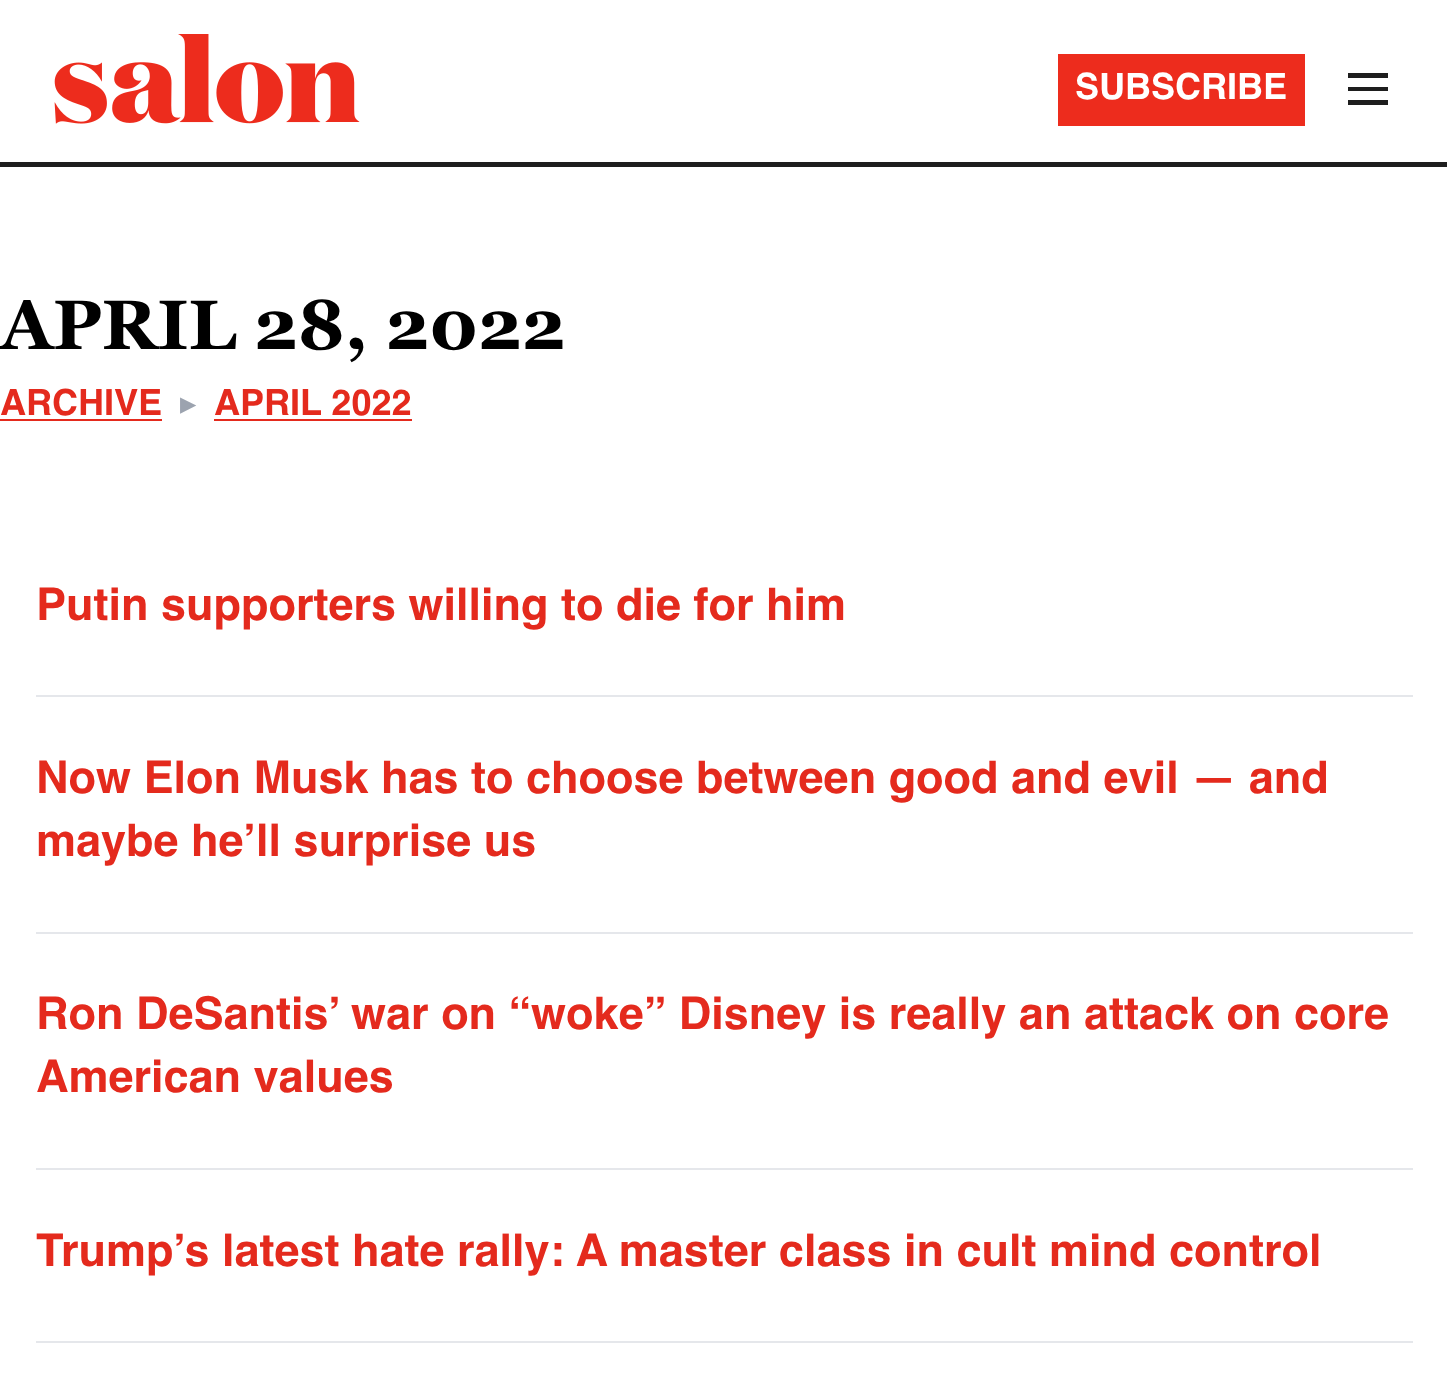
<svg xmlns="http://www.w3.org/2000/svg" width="1447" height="1383">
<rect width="100%" height="100%" fill="#fff"/>
<rect y="162" width="1447" height="5" fill="#1e1e1e"/>
<image x="54" y="34" width="306" height="90" href="media/1.png"/>
<rect x="1058" y="54" width="247" height="72" fill="#ed2c1d"/>
<text x="1075" y="99" style="font-family:Helvetica;font-size:36px;font-weight:bold;fill:#fff">SUBSCRIBE</text>
<path d="M1348 73h40v5h-40zm0 14h40v4h-40zm0 13h40v5h-40z" fill="#1e1e1e"/>
<text x="0" y="349" style="font-family:Georgia;font-size:69.75px;font-weight:bold;fill:#000">APRIL 28, 2022</text>
<text x="0" y="415" style="font-family:Helvetica;font-size:36px;font-weight:bold;fill:#e42a1d">ARCHIVE</text>
<rect y="419" width="162" height="2" fill="#e42a1d"/>
<text x="180" y="411" style="font-family:DejaVu Sans;font-size:20px;font-weight:bold;fill:#9ca3af">▶</text>
<text x="214" y="415" style="font-family:Helvetica;font-size:36px;font-weight:bold;fill:#e42a1d">APRIL 2022</text>
<rect x="214" y="419" width="198" height="2" fill="#e42a1d"/>
<rect x="36" y="695" width="1377" height="2" fill="#e5e7eb"/>
<text x="36" y="620" style="font-family:Helvetica;font-size:45px;font-weight:bold;fill:#e42a1d">Putin supporters willing to die for him</text>
<rect x="36" y="932" width="1377" height="2" fill="#e5e7eb"/>
<text x="36" y="793" style="font-family:Helvetica;font-size:45px;font-weight:bold;fill:#e42a1d">Now Elon Musk has to choose between good and evil — and</text>
<text x="36" y="856" style="font-family:Helvetica;font-size:45px;font-weight:bold;fill:#e42a1d">maybe he’ll surprise us</text>
<rect x="36" y="1168" width="1377" height="2" fill="#e5e7eb"/>
<text x="36" y="1029" style="font-family:Helvetica;font-size:45px;font-weight:bold;fill:#e42a1d">Ron DeSantis’ war on “woke” Disney is really an attack on core</text>
<text x="36" y="1092" style="font-family:Helvetica;font-size:45px;font-weight:bold;fill:#e42a1d">American values</text>
<rect x="36" y="1341" width="1377" height="2" fill="#e5e7eb"/>
<text x="36" y="1266" style="font-family:Helvetica;font-size:45px;font-weight:bold;fill:#e42a1d">Trump’s latest hate rally: A master class in cult mind control</text>
</svg>
